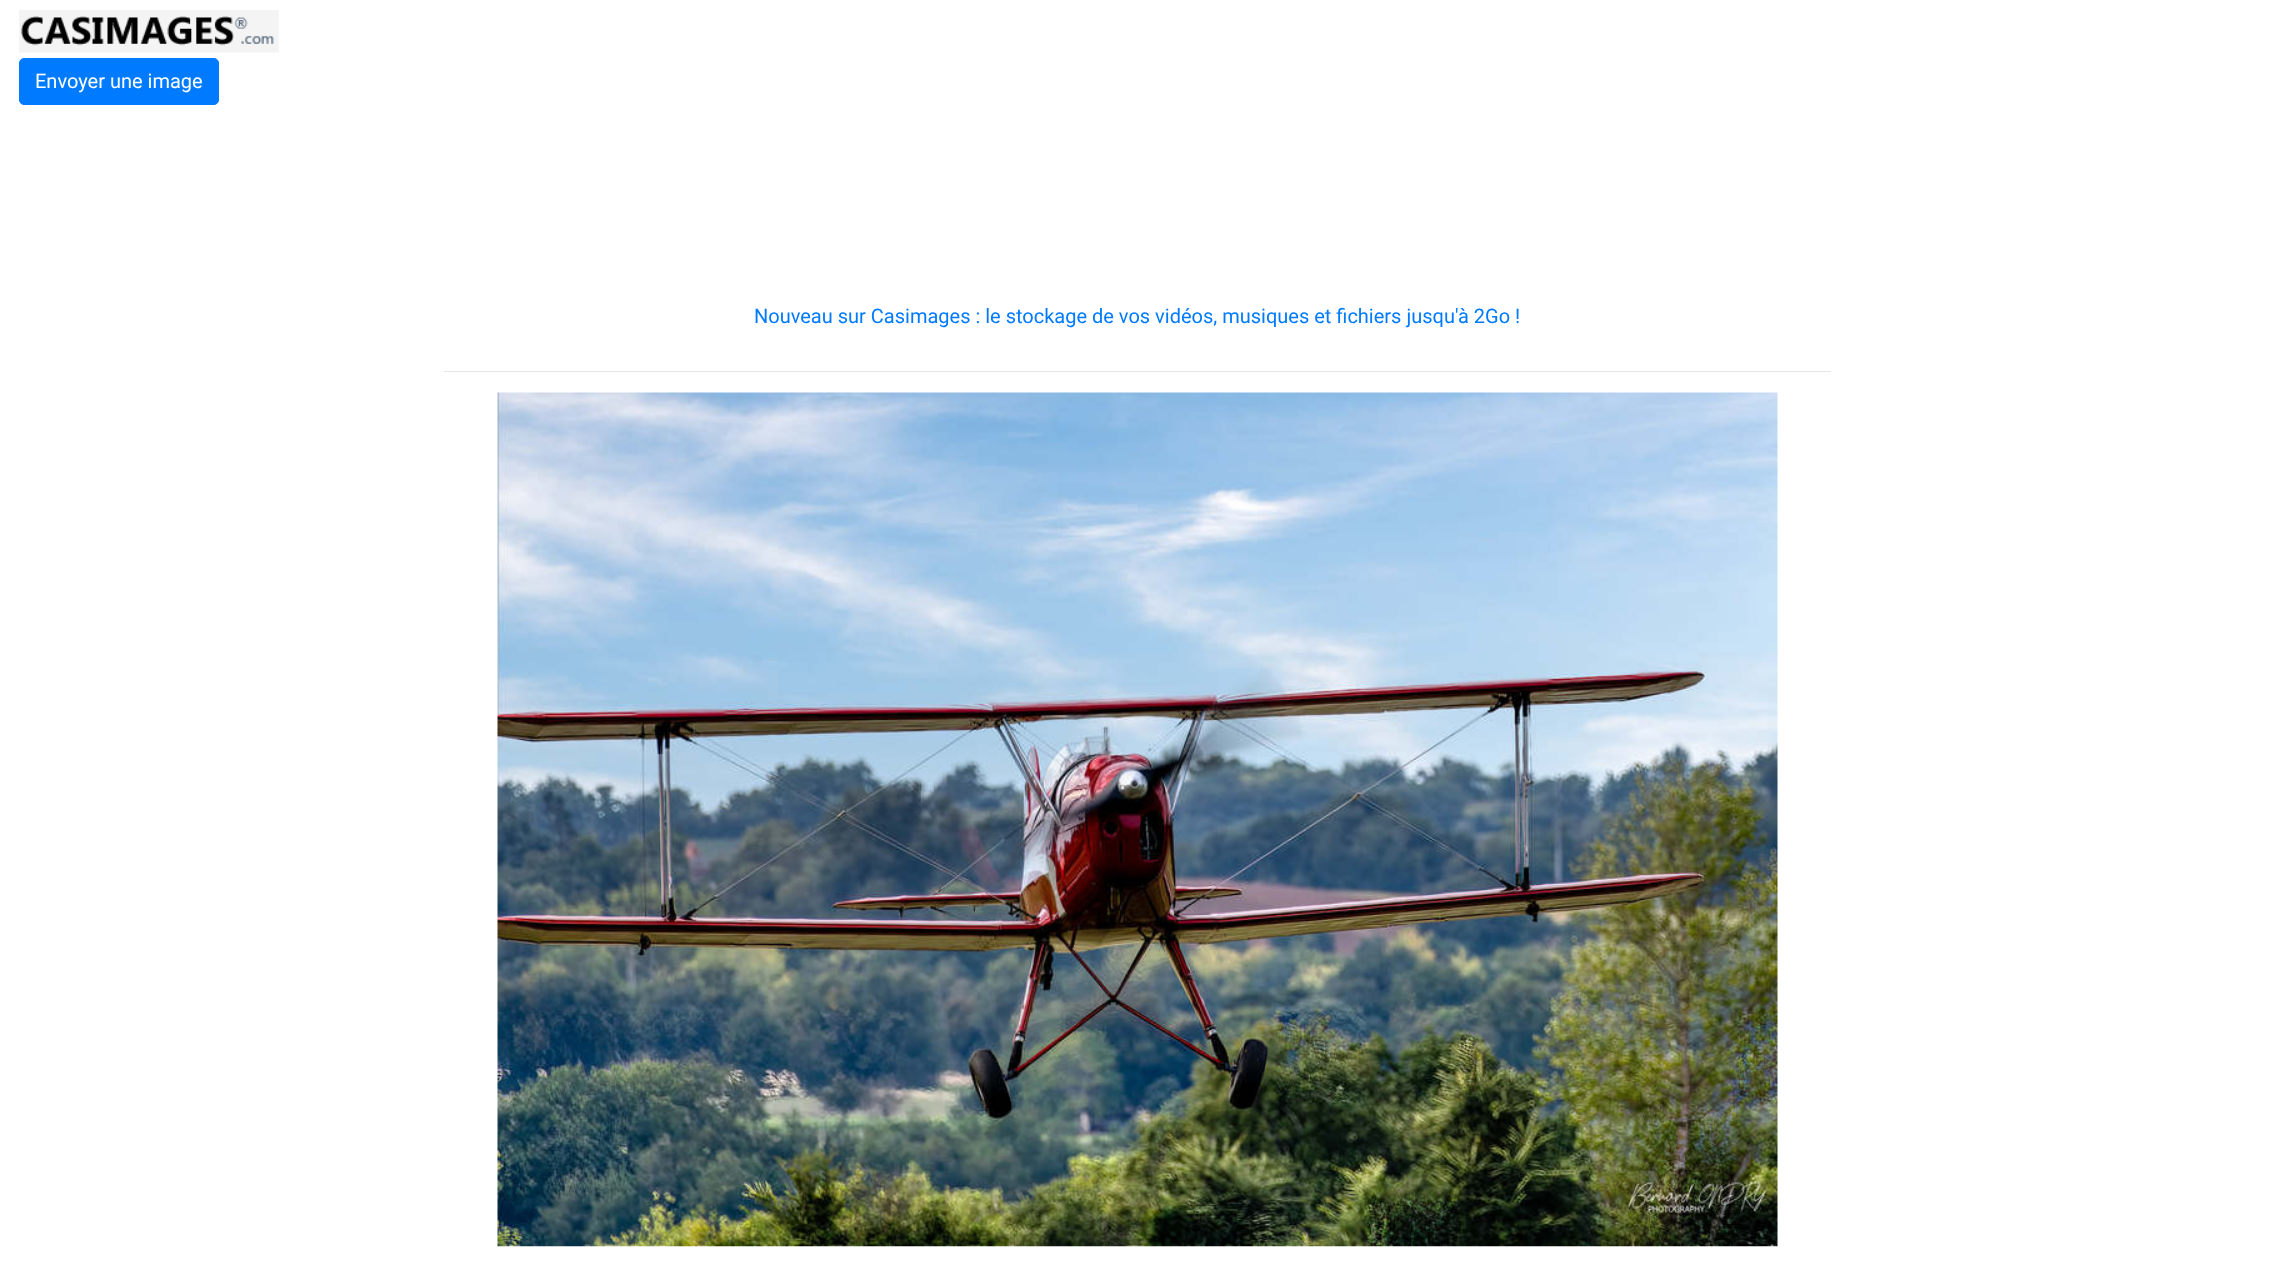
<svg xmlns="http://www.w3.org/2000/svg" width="2273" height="1286">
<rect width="100%" height="100%" fill="#fff"/>
<image x="19" y="10" width="260" height="43" href="media/1.png"/>
<rect x="19.5" y="58.5" width="199" height="46" rx="4.5" fill="#007bff" stroke="#007bff"/>
<text x="35" y="88" style="font-family:Roboto;font-size:20px;fill:#fff">Envoyer une image</text>
<text x="754" y="323" style="font-family:Roboto;font-size:20px;fill:#007bff">Nouveau sur Casimages : le stockage de vos vidéos, musiques et fichiers jusqu'à 2Go !</text>
<rect x="444" y="371" width="1387" height="1" fill="#e6e6e6"/>
<image x="497" y="392" width="1281" height="855" href="media/2.png"/>
</svg>
